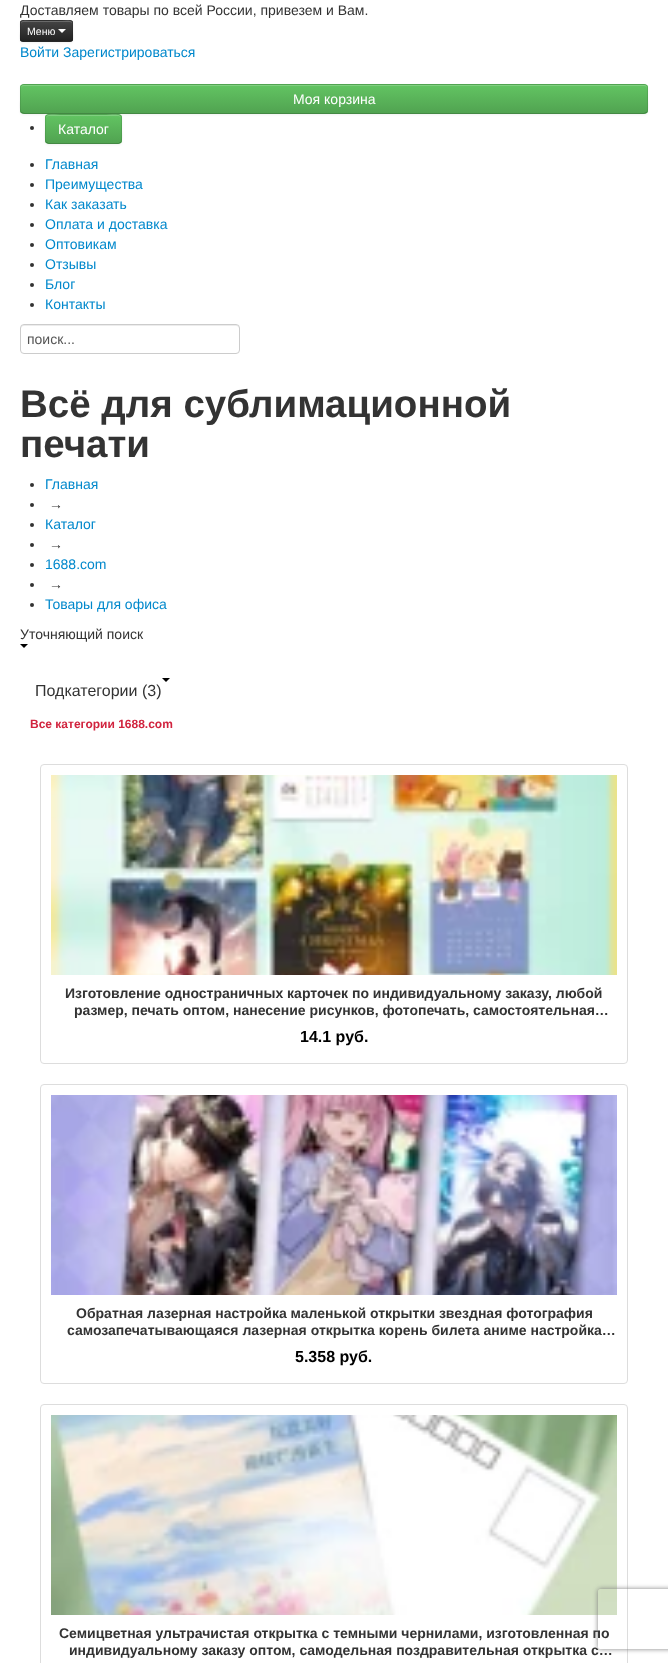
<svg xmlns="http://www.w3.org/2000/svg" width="668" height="1663">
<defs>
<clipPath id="clip1"><rect x="20" y="20" width="53" height="22" rx="3"/></clipPath>
<linearGradient id="g1" gradientUnits="userSpaceOnUse" x1="47" y1="21" x2="47" y2="41"><stop offset="0" stop-color="#444"/><stop offset="1" stop-color="#222"/></linearGradient>
<clipPath id="clip2"><rect x="20" y="84" width="628" height="30" rx="4"/></clipPath>
<linearGradient id="g2" gradientUnits="userSpaceOnUse" x1="334" y1="85" x2="334" y2="113"><stop offset="0" stop-color="#62c462"/><stop offset="1" stop-color="#51a351"/></linearGradient>
<clipPath id="clip3"><rect x="45" y="114" width="77" height="30" rx="4"/></clipPath>
<linearGradient id="g3" gradientUnits="userSpaceOnUse" x1="84" y1="115" x2="84" y2="143"><stop offset="0" stop-color="#62c462"/><stop offset="1" stop-color="#51a351"/></linearGradient>
<clipPath id="clip4"><path d="M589 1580h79v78h-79zm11 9h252c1 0 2 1 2 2v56c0 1-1 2-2 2h-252c-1 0-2-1-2-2v-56c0-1 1-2 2-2z" clip-rule="evenodd"/></clipPath>
</defs>
<rect width="100%" height="100%" fill="#fff"/>
<text x="20" y="15" style="font-family:Liberation Sans;font-size:14px;fill:#333">Доставляем товары по всей России, привезем и Вам.</text>
<rect x="20" y="21" width="53" height="22" rx="3" fill="#0000000d" filter="blur(1px)"/>
<rect x="20" y="20" width="53" height="22" rx="3" fill="#363636"/>
<g clip-path="url(#clip1)">
<rect x="20" y="21" width="53" height="20" fill="url(#g1)"/>
</g>
<path d="M23 22h47c1 0 2 1 2 2c0-5-6-3-10-3h-31c-4 0-10-2-10 3c0-1 1-2 2-2z" fill="#696969"/>
<path d="M72 41l-2 .5h-47l-2-.5" fill="none" stroke="#00000040"/>
<path d="M21 41c-1.5-2-.5-8-.5-10c0-12-2-10.5 10.5-10.5h31c12.5 0 10.5-1.5 10.5 10.5c0 2 1 8-.5 10" fill="none" stroke="#0000001a"/>
<text x="27" y="35" style="font-family:Liberation Sans;font-size:10.5px;fill:#fff">Меню</text>
<path d="M58 29h8l-4 4z" fill="#fff"/>
<text x="20" y="57" style="font-family:Liberation Sans;font-size:14px;fill:#08c">Войти Зарегистрироваться</text>
<rect x="20" y="85" width="628" height="30" rx="4" fill="#0000000d" filter="blur(1px)"/>
<rect x="20" y="84" width="628" height="30" rx="4" fill="#5bb75b"/>
<g clip-path="url(#clip2)">
<rect x="20" y="85" width="628" height="28" fill="url(#g2)"/>
</g>
<path d="M24 86h620c2 0 3 1 3 3v-1c0-2-1-3-3-3h-620c-2 0-3 1-3 3v1c0-2 1-3 3-3z" fill="#81cf81"/>
<path d="M646.5 112.5l-2.5 1h-620l-2.5-1" fill="none" stroke="#00000040"/>
<path d="M21.5 112.5c-2-2-1-10.5-1-13.5v-7.5c0-2.5-.5-6 2.5-7h622c3 1 2.5 4.5 2.5 7v7.5c0 3 1 11.5-1 13.5" fill="none" stroke="#0000001a"/>
<text x="293" y="104" style="font-family:Liberation Sans;font-size:14px;fill:#fff">Моя корзина</text>
<circle cx="32" cy="128" r="2" fill="#333"/>
<rect x="45" y="115" width="77" height="30" rx="4" fill="#0000000d" filter="blur(1px)"/>
<rect x="45" y="114" width="77" height="30" rx="4" fill="#5bb75b"/>
<g clip-path="url(#clip3)">
<rect x="45" y="115" width="77" height="28" fill="url(#g3)"/>
</g>
<path d="M49 116h69c2 0 3 1 3 3c0-7-10-4-15-4h-46c-4 0-14-3-14 4c0-2 1-3 3-3z" fill="#ffffff33"/>
<path d="M120.5 142.5l-2 1h-70l-2-1" fill="none" stroke="#00000040"/>
<path d="M46.5 142.5c-2-2-1-10.5-1-13.5c0-16.5-2.5-14.5 15-14.5h46c17.5 0 15-2 15 14.5c0 3 1 11.5-1 13.5" fill="none" stroke="#0000001a"/>
<text x="58" y="134" style="font-family:Liberation Sans;font-size:14px;fill:#fff">Каталог</text>
<circle cx="32" cy="165" r="2" fill="#333"/>
<text x="45" y="169" style="font-family:Liberation Sans;font-size:14px;fill:#08c">Главная</text>
<circle cx="32" cy="185" r="2" fill="#333"/>
<text x="45" y="189" style="font-family:Liberation Sans;font-size:14px;fill:#08c">Преимущества</text>
<circle cx="32" cy="205" r="2" fill="#333"/>
<text x="45" y="209" style="font-family:Liberation Sans;font-size:14px;fill:#08c">Как заказать</text>
<circle cx="32" cy="225" r="2" fill="#333"/>
<text x="45" y="229" style="font-family:Liberation Sans;font-size:14px;fill:#08c">Оплата и доставка</text>
<circle cx="32" cy="245" r="2" fill="#333"/>
<text x="45" y="249" style="font-family:Liberation Sans;font-size:14px;fill:#08c">Оптовикам</text>
<circle cx="32" cy="265" r="2" fill="#333"/>
<text x="45" y="269" style="font-family:Liberation Sans;font-size:14px;fill:#08c">Отзывы</text>
<circle cx="32" cy="285" r="2" fill="#333"/>
<text x="45" y="289" style="font-family:Liberation Sans;font-size:14px;fill:#08c">Блог</text>
<circle cx="32" cy="305" r="2" fill="#333"/>
<text x="45" y="309" style="font-family:Liberation Sans;font-size:14px;fill:#08c">Контакты</text>
<path d="M24 326h212c2 0 3 1 3 3v-1c0-2-1-3-3-3h-212c-2 0-3 1-3 3v1c0-2 1-3 3-3z" fill="#ececec"/>
<rect x="20.5" y="324.5" width="219" height="29" rx="3.5" fill="none" stroke="#ccc"/>
<text x="27" y="344" style="font-family:Liberation Sans;font-size:14px;fill:#555">поиск...</text>
<text x="20" y="417" style="font-family:Liberation Sans;font-size:38.5px;font-weight:bold;fill:#333">Всё для сублимационной</text>
<text x="20" y="457" style="font-family:Liberation Sans;font-size:38.5px;font-weight:bold;fill:#333">печати</text>
<circle cx="32" cy="485" r="2" fill="#333"/>
<text x="45" y="489" style="font-family:Liberation Sans;font-size:14px;fill:#08c">Главная</text>
<circle cx="32" cy="505" r="2" fill="#333"/>
<text x="49" y="509" style="font-family:Liberation Sans;font-size:14px;fill:#333">→</text>
<circle cx="32" cy="525" r="2" fill="#333"/>
<text x="45" y="529" style="font-family:Liberation Sans;font-size:14px;fill:#08c">Каталог</text>
<circle cx="32" cy="545" r="2" fill="#333"/>
<text x="49" y="549" style="font-family:Liberation Sans;font-size:14px;fill:#333">→</text>
<circle cx="32" cy="565" r="2" fill="#333"/>
<text x="45" y="569" style="font-family:Liberation Sans;font-size:14px;fill:#08c">1688.com</text>
<circle cx="32" cy="585" r="2" fill="#333"/>
<text x="49" y="589" style="font-family:Liberation Sans;font-size:14px;fill:#333">→</text>
<circle cx="32" cy="605" r="2" fill="#333"/>
<text x="45" y="609" style="font-family:Liberation Sans;font-size:14px;fill:#08c">Товары для офиса</text>
<text x="20" y="639" style="font-family:Liberation Sans;font-size:14px;fill:#333">Уточняющий поиск</text>
<path d="M20 644h8l-4 4z" fill="#000"/>
<path d="M162 678h8l-4 4z" fill="#000"/>
<text x="35" y="696" style="font-family:Liberation Sans;font-size:16px;fill:#333">Подкатегории (3)</text>
<text x="30" y="728" style="font-family:Liberation Sans;font-size:12px;font-weight:bold;fill:#d1233e">Все категории 1688.com</text>
<rect x="40.5" y="764.5" width="587" height="299" rx="3.5" fill="none" stroke="#ddd"/>
<image x="51" y="775" width="566" height="200" href="media/1.png"/>
<text x="65" y="998" style="font-family:Liberation Sans;font-size:14px;font-weight:bold;fill:#333">Изготовление одностраничных карточек по индивидуальному заказу, любой</text>
<text x="74" y="1015" style="font-family:Liberation Sans;font-size:14px;font-weight:bold;fill:#333">размер, печать оптом, нанесение рисунков, фотопечать, самостоятельная…</text>
<text x="300" y="1042" style="font-family:Liberation Sans;font-size:16px;font-weight:bold;fill:#000">14.1 руб.</text>
<rect x="40.5" y="1084.5" width="587" height="299" rx="3.5" fill="none" stroke="#ddd"/>
<image x="51" y="1095" width="566" height="200" href="media/2.png"/>
<text x="76" y="1318" style="font-family:Liberation Sans;font-size:14px;font-weight:bold;fill:#333">Обратная лазерная настройка маленькой открытки звездная фотография</text>
<text x="67" y="1335" style="font-family:Liberation Sans;font-size:14px;font-weight:bold;fill:#333">самозапечатывающаяся лазерная открытка корень билета аниме настройка…</text>
<text x="295" y="1362" style="font-family:Liberation Sans;font-size:16px;font-weight:bold;fill:#000">5.358 руб.</text>
<rect x="40.5" y="1404.5" width="587" height="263" rx="3.5" fill="none" stroke="#ddd"/>
<image x="51" y="1415" width="566" height="200" href="media/3.png"/>
<text x="59" y="1638" style="font-family:Liberation Sans;font-size:14px;font-weight:bold;fill:#333">Семицветная ультрачистая открытка с темными чернилами, изготовленная по</text>
<text x="69" y="1655" style="font-family:Liberation Sans;font-size:14px;font-weight:bold;fill:#333">индивидуальному заказу оптом, самодельная поздравительная открытка с…</text>
<g clip-path="url(#clip4)">
<rect x="598" y="1589" width="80" height="60" rx="2" fill="#808080" filter="blur(2.5px)"/>
</g>
</svg>
